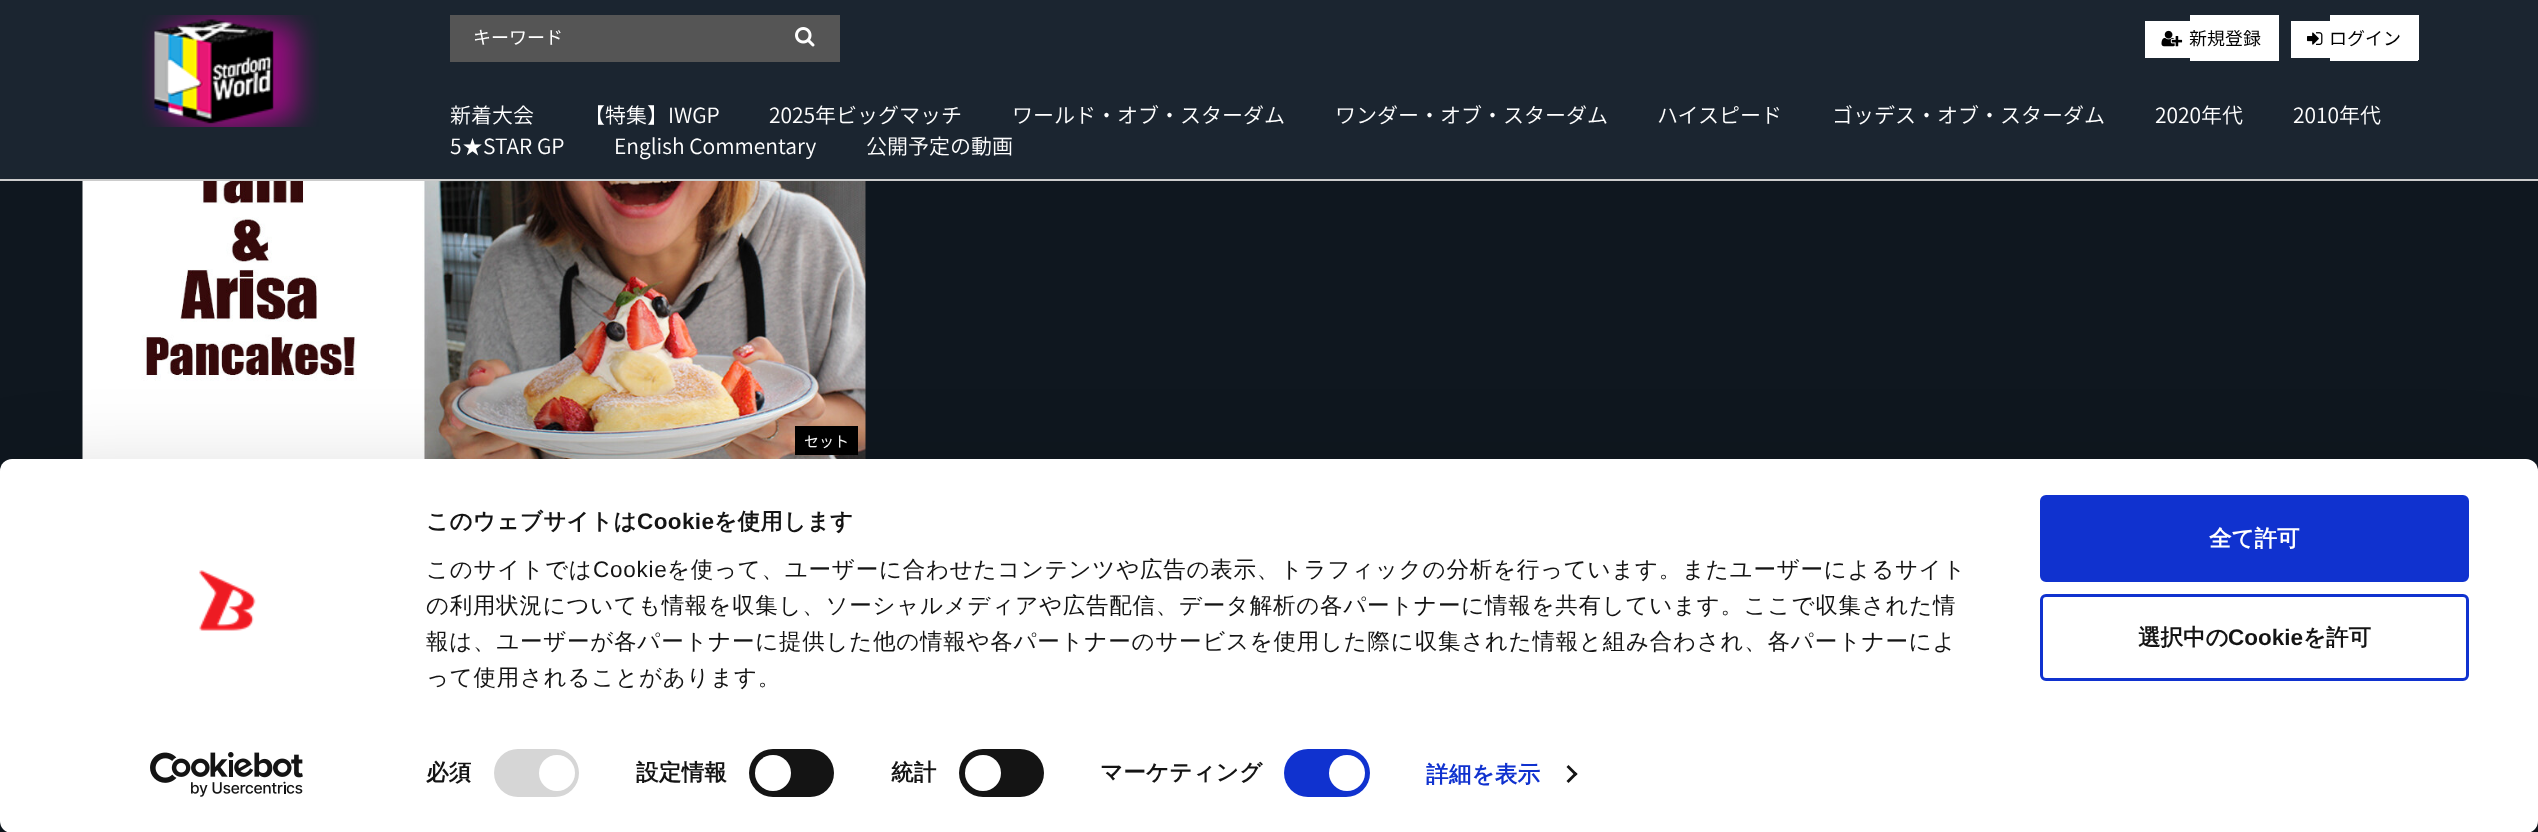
<svg xmlns="http://www.w3.org/2000/svg" width="2538" height="832">
<rect width="100%" height="100%" fill="#0f171f"/>
<rect width="2538" height="179" fill="#1b2530"/>
<rect y="179" width="2538" height="2" fill="#ccc"/>
<image x="142" y="15" width="177" height="112" href="media/1.png"/>
<rect x="450" y="15" width="390" height="47" fill="#555"/>
<text x="473" y="44" style="font-family:Noto Sans JP;font-size:18px;fill:#fff">キーワード</text>
<image x="795" y="27" width="20" height="20" href="media/2.png"/>
<rect x="2145" y="21" width="45" height="37" fill="#fff"/>
<rect x="2190" y="15" width="89" height="46" fill="#fff"/>
<image x="2161" y="30" width="22" height="17" href="media/3.png"/>
<text x="2189" y="45" style="font-family:Noto Sans JP;font-size:18px;fill:#000">新規登録</text>
<rect x="2291" y="21" width="39" height="37" fill="#fff"/>
<rect x="2330" y="15" width="87" height="44" fill="#fff"/>
<rect x="2417" y="15" width="2" height="45" fill="#fff"/>
<rect x="2330" y="59" width="88" height="2" fill="#fff"/>
<image x="2307" y="32" width="16" height="13" href="media/4.png"/>
<text x="2329" y="45" style="font-family:Noto Sans JP;font-size:18px;fill:#000">ログイン</text>
<text x="450" y="123" style="font-family:Noto Sans JP;font-size:21px;font-weight:300;fill:#fff">新着大会</text>
<text x="584" y="123" style="font-family:Noto Sans JP;font-size:21px;font-weight:300;fill:#fff">【特集】IWGP</text>
<text x="769" y="123" style="font-family:Noto Sans JP;font-size:21px;font-weight:300;fill:#fff">2025年ビッグマッチ</text>
<text x="1012" y="123" style="font-family:Noto Sans JP;font-size:21px;font-weight:300;fill:#fff">ワールド・オブ・スターダム</text>
<text x="1335" y="123" style="font-family:Noto Sans JP;font-size:21px;font-weight:300;fill:#fff">ワンダー・オブ・スターダム</text>
<text x="1657" y="123" style="font-family:Noto Sans JP;font-size:21px;font-weight:300;fill:#fff">ハイスピード</text>
<text x="1832" y="123" style="font-family:Noto Sans JP;font-size:21px;font-weight:300;fill:#fff">ゴッデス・オブ・スターダム</text>
<text x="2155" y="123" style="font-family:Noto Sans JP;font-size:21px;font-weight:300;fill:#fff">2020年代</text>
<text x="2293" y="123" style="font-family:Noto Sans JP;font-size:21px;font-weight:300;fill:#fff">2010年代</text>
<text x="450" y="154" style="font-family:Noto Sans JP;font-size:21px;font-weight:300;fill:#fff">5</text>
<text x="462" y="154" style="font-family:WenQuanYi Zen Hei;font-size:21px;font-weight:500;fill:#fff">★</text>
<text x="483" y="154" style="font-family:Noto Sans JP;font-size:21px;font-weight:300;fill:#fff">STAR GP</text>
<text x="614" y="154" style="font-family:Noto Sans JP;font-size:21px;font-weight:300;fill:#fff">English Commentary</text>
<text x="866" y="154" style="font-family:Noto Sans JP;font-size:21px;font-weight:300;fill:#fff">公開予定の動画</text>
<image x="82" y="181" width="784" height="278" href="media/5.png"/>
<rect x="795" y="426" width="63" height="29" fill="#000"/>
<text x="804" y="447" style="font-family:Noto Sans JP;font-size:15px;fill:#fff">セット</text>
<rect y="504" width="2538" height="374" rx="12" fill="#0000004d" filter="blur(52.5px)"/>
<rect y="459" width="2538" height="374" rx="12" fill="#fff"/>
<image x="199" y="570" width="57" height="61" href="media/6.png"/>
<image x="150" y="752" width="153" height="45" href="media/7.png"/>
<text x="426" y="529" style="font-family:WenQuanYi Zen Hei;font-size:22.5px;font-weight:bold;letter-spacing:0.4px;fill:#141414">このウェブサイトは</text>
<text x="637" y="529" style="font-family:Liberation Sans;font-size:22.5px;font-weight:bold;letter-spacing:0.4px;fill:#141414">Cookie</text>
<text x="714" y="529" style="font-family:WenQuanYi Zen Hei;font-size:22.5px;font-weight:bold;letter-spacing:0.4px;fill:#141414">を使用します</text>
<text x="426" y="577" style="font-family:WenQuanYi Zen Hei;font-size:22.5px;font-weight:500;letter-spacing:0.75px;fill:#141414">このサイトでは</text>
<text x="593" y="577" style="font-family:Liberation Sans;font-size:22.5px;letter-spacing:0.75px;fill:#141414">Cookie</text>
<text x="667" y="577" style="font-family:WenQuanYi Zen Hei;font-size:22.5px;font-weight:500;letter-spacing:0.75px;fill:#141414">を使って、ユーザーに合わせたコンテンツや広告の表示、トラフィックの分析を行っています。またユーザーによるサイト</text>
<text x="426" y="613" style="font-family:WenQuanYi Zen Hei;font-size:22.5px;font-weight:500;letter-spacing:0.75px;fill:#141414">の利用状況についても情報を収集し、ソーシャルメディアや広告配信、データ解析の各パートナーに情報を共有しています。ここで収集された情</text>
<text x="426" y="649" style="font-family:WenQuanYi Zen Hei;font-size:22.5px;font-weight:500;letter-spacing:0.75px;fill:#141414">報は、ユーザーが各パートナーに提供した他の情報や各パートナーのサービスを使用した際に収集された情報と組み合わされ、各パートナーによ</text>
<text x="426" y="685" style="font-family:WenQuanYi Zen Hei;font-size:22.5px;font-weight:500;letter-spacing:0.75px;fill:#141414">って使用されることがあります。</text>
<text x="426" y="780" style="font-family:WenQuanYi Zen Hei;font-size:22.5px;font-weight:bold;letter-spacing:0.25px;fill:#141414">必須</text>
<rect x="494" y="749" width="85" height="48" rx="24" fill="#d6d6d6"/>
<circle cx="557" cy="773" r="18" fill="#fff"/>
<text x="636" y="780" style="font-family:WenQuanYi Zen Hei;font-size:22.5px;font-weight:bold;letter-spacing:0.25px;fill:#141414">設定情報</text>
<rect x="749" y="749" width="85" height="48" rx="24" fill="#141414"/>
<circle cx="773" cy="773" r="18" fill="#fff"/>
<text x="891" y="780" style="font-family:WenQuanYi Zen Hei;font-size:22.5px;font-weight:bold;letter-spacing:0.25px;fill:#141414">統計</text>
<rect x="959" y="749" width="85" height="48" rx="24" fill="#141414"/>
<circle cx="983" cy="773" r="18" fill="#fff"/>
<text x="1100" y="780" style="font-family:WenQuanYi Zen Hei;font-size:22.5px;font-weight:bold;letter-spacing:0.25px;fill:#141414">マーケティング</text>
<rect x="1284" y="749" width="86" height="48" rx="24" fill="#1032cf"/>
<circle cx="1347" cy="773" r="18" fill="#fff"/>
<text x="1426" y="782" style="font-family:WenQuanYi Zen Hei;font-size:22.5px;font-weight:bold;letter-spacing:0.25px;fill:#1032cf">詳細を表示</text>
<path d="M1568.5 765l9 9l-2 2l-9-9z" fill="#141414"/>
<path d="M1575.5 772l2 2l-9 9l-2-2z" fill="#141414"/>
<rect x="2041.5" y="496.5" width="426" height="84" rx="4.5" fill="#1032cf" stroke="#1032cf" stroke-width="3"/>
<text x="2209" y="546" style="font-family:WenQuanYi Zen Hei;font-size:22.5px;font-weight:bold;fill:#fff">全て許可</text>
<rect x="2041.5" y="595.5" width="426" height="84" rx="4.5" fill="none" stroke="#1032cf" stroke-width="3"/>
<text x="2138" y="645" style="font-family:WenQuanYi Zen Hei;font-size:22.5px;font-weight:bold;fill:#141414">選択中の</text>
<text x="2228" y="645" style="font-family:Liberation Sans;font-size:22.5px;font-weight:bold;fill:#141414">Cookie</text>
<text x="2303" y="645" style="font-family:WenQuanYi Zen Hei;font-size:22.5px;font-weight:bold;fill:#141414">を許可</text>
</svg>
